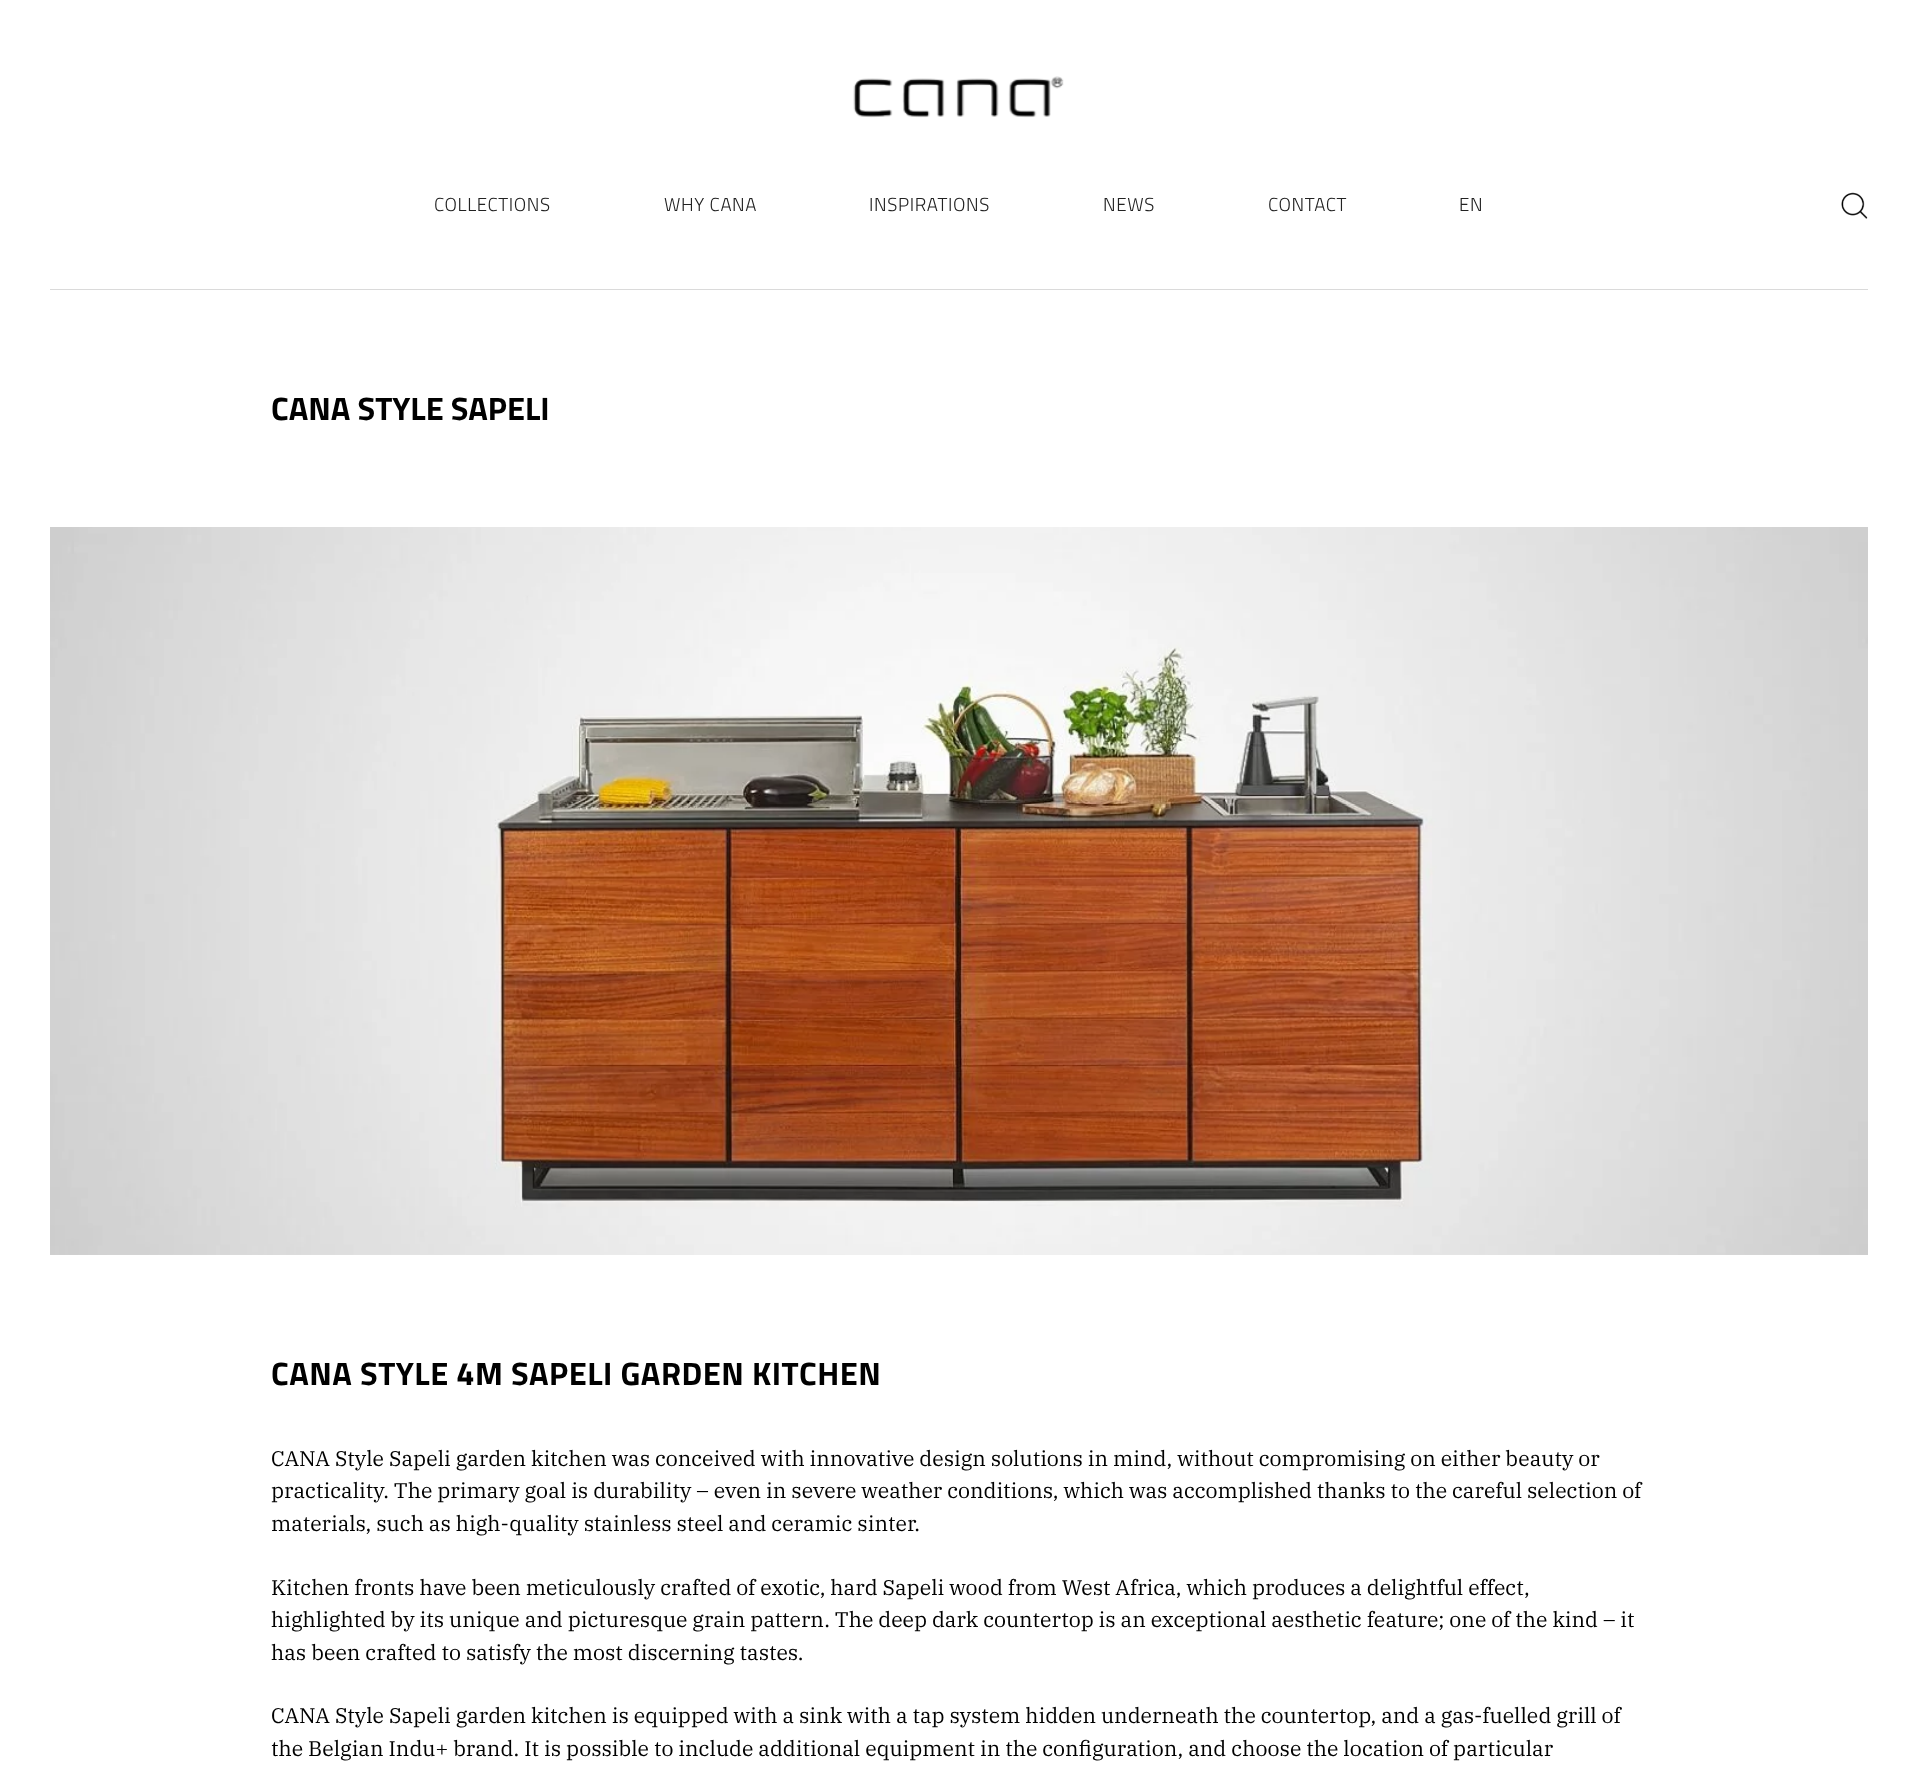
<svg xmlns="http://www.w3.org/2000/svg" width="1917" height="1767">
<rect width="100%" height="100%" fill="#fff"/>
<image x="853" y="76" width="211" height="42" href="media/1.png"/>
<text x="434" y="211" style="font-family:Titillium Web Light;font-size:18.75px;font-weight:300;letter-spacing:0.6px;fill:#222">COLLECTIONS</text>
<text x="664" y="211" style="font-family:Titillium Web Light;font-size:18.75px;font-weight:300;letter-spacing:0.6px;fill:#222">WHY CANA</text>
<text x="869" y="211" style="font-family:Titillium Web Light;font-size:18.75px;font-weight:300;letter-spacing:0.6px;fill:#222">INSPIRATIONS</text>
<text x="1103" y="211" style="font-family:Titillium Web Light;font-size:18.75px;font-weight:300;letter-spacing:0.6px;fill:#222">NEWS</text>
<text x="1268" y="211" style="font-family:Titillium Web Light;font-size:18.75px;font-weight:300;letter-spacing:0.6px;fill:#222">CONTACT</text>
<text x="1459" y="211" style="font-family:Titillium Web Light;font-size:18.75px;font-weight:300;letter-spacing:0.6px;fill:#222">EN</text>
<image x="1841" y="192" width="27" height="27" href="media/2.png"/>
<rect x="50" y="289" width="1818" height="1" fill="#dadada"/>
<text x="271" y="420" style="font-family:Titillium Web;font-size:32.5px;font-weight:bold;fill:#000">CANA STYLE SAPELI</text>
<image x="50" y="527" width="1818" height="728" href="media/3.png"/>
<text x="271" y="1385" style="font-family:Titillium Web;font-size:32.5px;font-weight:bold;letter-spacing:0.5px;fill:#000">CANA STYLE 4M SAPELI GARDEN KITCHEN</text>
<text x="271" y="1466" style="font-family:IBM Plex Serif;font-size:21.25px;fill:#000">CANA Style Sapeli garden kitchen was conceived with innovative design solutions in mind, without compromising on either beauty or</text>
<text x="271" y="1498" style="font-family:IBM Plex Serif;font-size:21.25px;fill:#000">practicality. The primary goal is durability – even in severe weather conditions, which was accomplished thanks to the careful selection of</text>
<text x="271" y="1531" style="font-family:IBM Plex Serif;font-size:21.25px;fill:#000">materials, such as high-quality stainless steel and ceramic sinter.</text>
<text x="271" y="1595" style="font-family:IBM Plex Serif;font-size:21.25px;fill:#000">Kitchen fronts have been meticulously crafted of exotic, hard Sapeli wood from West Africa, which produces a delightful effect,</text>
<text x="271" y="1627" style="font-family:IBM Plex Serif;font-size:21.25px;fill:#000">highlighted by its unique and picturesque grain pattern. The deep dark countertop is an exceptional aesthetic feature; one of the kind – it</text>
<text x="271" y="1660" style="font-family:IBM Plex Serif;font-size:21.25px;fill:#000">has been crafted to satisfy the most discerning tastes.</text>
<text x="271" y="1723" style="font-family:IBM Plex Serif;font-size:21.25px;fill:#000">CANA Style Sapeli garden kitchen is equipped with a sink with a tap system hidden underneath the countertop, and a gas-fuelled grill of</text>
<text x="271" y="1756" style="font-family:IBM Plex Serif;font-size:21.25px;fill:#000">the Belgian Indu+ brand. It is possible to include additional equipment in the configuration, and choose the location of particular</text>
</svg>
